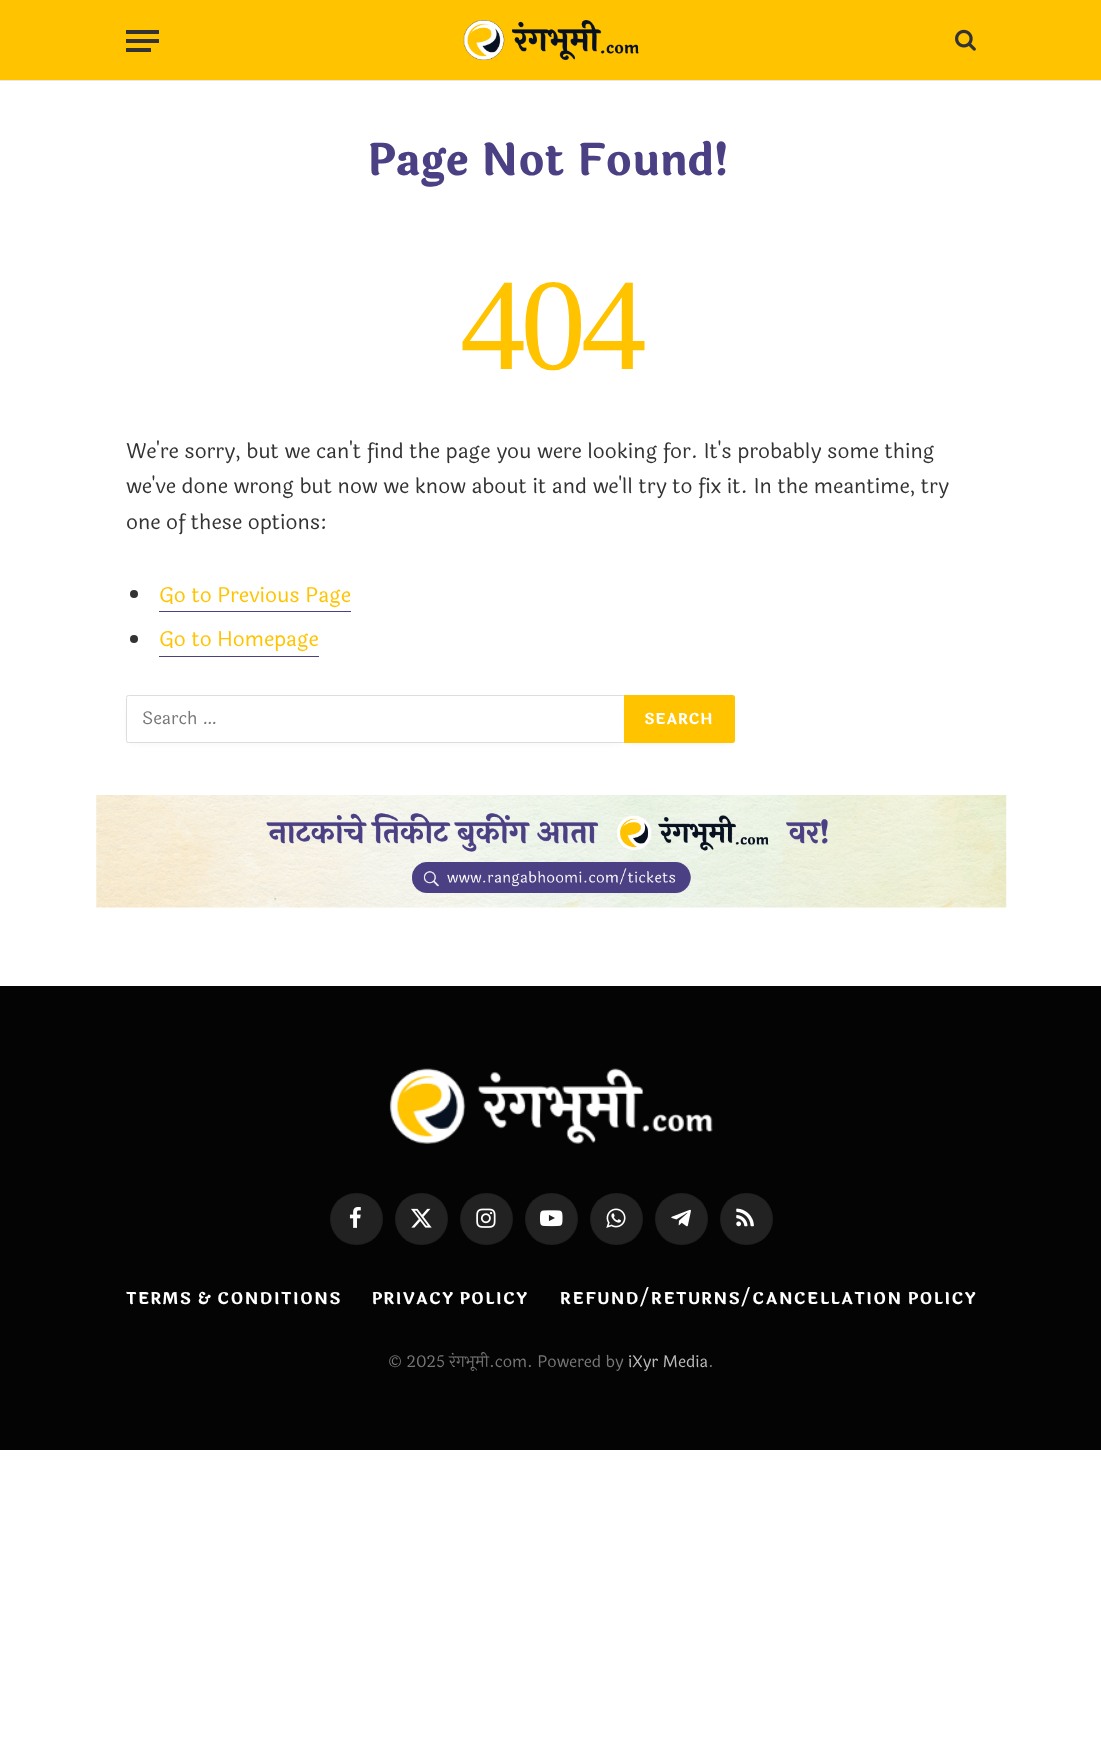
<svg xmlns="http://www.w3.org/2000/svg" width="1101" height="1754">
<rect width="100%" height="100%" fill="#fff"/>
<rect width="1101" height="80" fill="#ffc300"/>
<rect y="80" width="1101" height="1" fill="#e8e8e8"/>
<rect x="126" y="48" width="25" height="4" fill="#333"/>
<rect x="126" y="30" width="33" height="4" fill="#333"/>
<rect x="126" y="39" width="33" height="4" fill="#333"/>
<image x="463" y="20" width="176" height="40" href="media/1.png"/>
<image x="955" y="29" width="21" height="22" href="media/2.png"/>
<text x="368" y="175" style="font-family:Laila;font-size:43.75px;font-weight:bold;fill:#4c4084">Page Not Found!</text>
<text x="460" y="369" style="font-family:Liberation Serif;font-size:131px;letter-spacing:-5px;fill:#ffc300">404</text>
<text x="126" y="458" style="font-family:Laila;font-size:20.75px;fill:#333">We're sorry, but we can't find the page you were looking for. It's probably some thing</text>
<text x="126" y="493" style="font-family:Laila;font-size:20.75px;fill:#333">we've done wrong but now we know about it and we'll try to fix it. In the meantime, try</text>
<text x="126" y="529" style="font-family:Laila;font-size:20.75px;fill:#333">one of these options:</text>
<circle cx="134" cy="594" r="4" fill="#333"/>
<text x="159" y="602" style="font-family:Laila;font-size:20.75px;fill:#ffc300">Go to Previous Page</text>
<rect x="159" y="611" width="192" height="1" fill="#4c4084"/>
<circle cx="134" cy="639" r="4" fill="#333"/>
<text x="159" y="646" style="font-family:Laila;font-size:20.75px;fill:#ffc300">Go to Homepage</text>
<rect x="159" y="656" width="160" height="1" fill="#4c4084"/>
<rect x="131" y="703" width="490" height="37" fill="#0000001a" filter="blur(4.5px)"/>
<rect x="126.5" y="695.5" width="499" height="47" rx="2" fill="#fff" stroke="#ddd"/>
<text x="142" y="724" style="font-family:Laila;font-size:17.5px;fill:#777">Search …</text>
<rect x="629" y="703" width="101" height="37" fill="#00000029" filter="blur(4.5px)"/>
<path d="M624 695h108.5c1.5 0 2.5 1 2.5 2.5v43c0 1.5-1 2.5-2.5 2.5h-108.5z" fill="#ffc300"/>
<text x="644" y="724" style="font-family:Laila;font-size:15px;font-weight:bold;letter-spacing:0.5px;fill:#fff">SEARCH</text>
<image x="96" y="795" width="911" height="113" href="media/3.png"/>
<rect y="986" width="1101" height="464" fill="#040404"/>
<image x="389" y="1068" width="324" height="76" href="media/4.png"/>
<rect x="330" y="1193" width="53" height="52" rx="26" fill="#222"/>
<rect x="330.5" y="1193.5" width="52" height="51" rx="25.5" fill="none" stroke="#00000017"/>
<image x="349" y="1207" width="12" height="21" href="media/5.png"/>
<rect x="395" y="1193" width="53" height="52" rx="26" fill="#222"/>
<rect x="395.5" y="1193.5" width="52" height="51" rx="25.5" fill="none" stroke="#00000017"/>
<image x="411" y="1208" width="21" height="20" href="media/6.png"/>
<rect x="460" y="1193" width="53" height="52" rx="26" fill="#222"/>
<rect x="460.5" y="1193.5" width="52" height="51" rx="25.5" fill="none" stroke="#00000017"/>
<image x="476" y="1208" width="20" height="20" href="media/7.png"/>
<rect x="525" y="1193" width="53" height="52" rx="26" fill="#222"/>
<rect x="525.5" y="1193.5" width="52" height="51" rx="25.5" fill="none" stroke="#00000017"/>
<image x="540" y="1210" width="23" height="17" href="media/8.png"/>
<rect x="590" y="1193" width="53" height="52" rx="26" fill="#222"/>
<rect x="590.5" y="1193.5" width="52" height="51" rx="25.5" fill="none" stroke="#00000017"/>
<image x="606" y="1208" width="20" height="20" href="media/9.png"/>
<rect x="655" y="1193" width="53" height="52" rx="26" fill="#222"/>
<rect x="655.5" y="1193.5" width="52" height="51" rx="25.5" fill="none" stroke="#00000017"/>
<image x="671" y="1209" width="20" height="18" href="media/10.png"/>
<rect x="720" y="1193" width="53" height="52" rx="26" fill="#222"/>
<rect x="720.5" y="1193.5" width="52" height="51" rx="25.5" fill="none" stroke="#00000017"/>
<image x="736" y="1208" width="18" height="19" href="media/11.png"/>
<text x="126" y="1304" style="font-family:Laila;font-size:16.25px;font-weight:bold;letter-spacing:1.15px;fill:#fff">TERMS &amp; CONDITIONS</text>
<text x="372" y="1304" style="font-family:Laila;font-size:16.25px;font-weight:bold;letter-spacing:1.15px;fill:#fff">PRIVACY POLICY</text>
<text x="560" y="1304" style="font-family:Laila;font-size:16.25px;font-weight:bold;letter-spacing:1.15px;fill:#fff">REFUND/RETURNS/CANCELLATION POLICY</text>
<text x="388" y="1367" style="font-family:Laila;font-size:16.25px;fill:#777">© 2025 रंगभूमी.com. Powered by</text>
<text x="628" y="1367" style="font-family:Laila;font-size:16.25px;fill:#bbb">iXyr Media</text>
<text x="708" y="1367" style="font-family:Laila;font-size:16.25px;fill:#777">.</text>
</svg>
